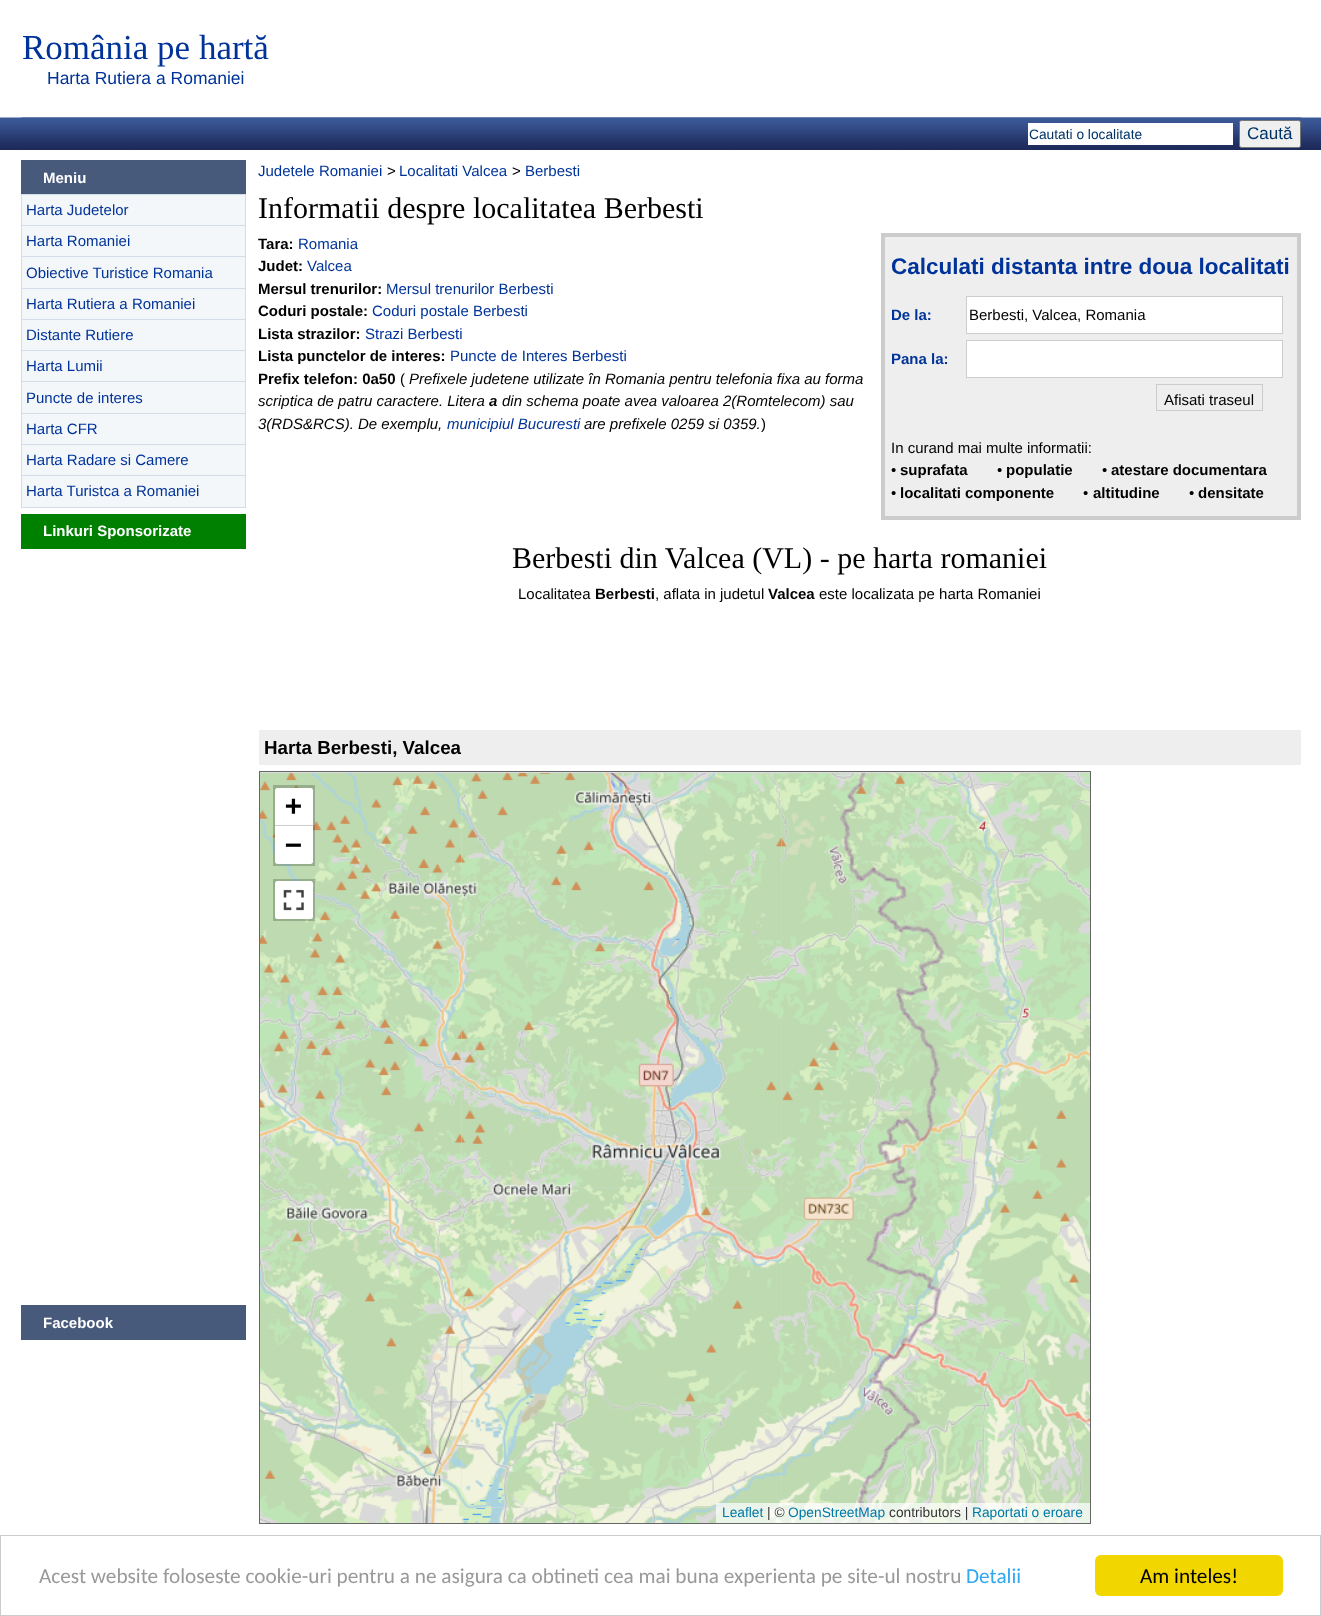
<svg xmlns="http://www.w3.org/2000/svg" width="1321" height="1616">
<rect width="100%" height="100%" fill="#fff"/>
<image x="0" y="117" width="1321" height="33" href="media/1.png"/>
<text x="22" y="59" style="font-family:Liberation Serif;font-size:35px;fill:#039">România pe hartă</text>
<text x="47" y="84" style="font-family:Liberation Sans;font-size:17.5px;fill:#039">Harta Rutiera a Romaniei</text>
<image x="21" y="117" width="1281" height="33" href="media/2.png"/>
<rect x="1028" y="123" width="205" height="22" fill="#fff"/>
<text x="1029" y="139" style="font-family:Liberation Sans;font-size:13.75px;fill:#036">Cautati o localitate</text>
<rect x="1239.5" y="120.5" width="61" height="27" rx="2" fill="#efefef" stroke="#767676"/>
<text x="1247" y="139" style="font-family:Liberation Sans;font-size:17px;fill:#036">Caută</text>
<rect x="21" y="160" width="225" height="34" fill="#485a7b"/>
<text x="43" y="183" style="font-family:Liberation Sans;font-size:15px;font-weight:bold;fill:#fff">Meniu</text>
<rect x="21.5" y="194.5" width="224" height="31" fill="#f4f7f9" stroke="#d3dcea"/>
<text x="26" y="215" style="font-family:Liberation Sans;font-size:15px;fill:#039">Harta Judetelor</text>
<rect x="22" y="226" width="223" height="30" fill="#f4f7f9"/>
<rect x="21.5" y="225.5" width="224" height="32" fill="none" stroke="#d3dcea"/>
<text x="26" y="246" style="font-family:Liberation Sans;font-size:15px;fill:#039">Harta Romaniei</text>
<rect x="21.5" y="256.5" width="224" height="32" fill="#f4f7f9" stroke="#d3dcea"/>
<text x="26" y="278" style="font-family:Liberation Sans;font-size:15px;fill:#039">Obiective Turistice Romania</text>
<rect x="21.5" y="288.5" width="224" height="31" fill="#f4f7f9" stroke="#d3dcea"/>
<text x="26" y="309" style="font-family:Liberation Sans;font-size:15px;fill:#039">Harta Rutiera a Romaniei</text>
<rect x="21.5" y="319.5" width="224" height="31" fill="#f4f7f9" stroke="#d3dcea"/>
<text x="26" y="340" style="font-family:Liberation Sans;font-size:15px;fill:#039">Distante Rutiere</text>
<rect x="22" y="351" width="223" height="30" fill="#f4f7f9"/>
<rect x="21.5" y="350.5" width="224" height="32" fill="none" stroke="#d3dcea"/>
<text x="26" y="371" style="font-family:Liberation Sans;font-size:15px;fill:#039">Harta Lumii</text>
<rect x="21.5" y="381.5" width="224" height="32" fill="#f4f7f9" stroke="#d3dcea"/>
<text x="26" y="403" style="font-family:Liberation Sans;font-size:15px;fill:#039">Puncte de interes</text>
<rect x="21.5" y="413.5" width="224" height="31" fill="#f4f7f9" stroke="#d3dcea"/>
<text x="26" y="434" style="font-family:Liberation Sans;font-size:15px;fill:#039">Harta CFR</text>
<rect x="21.5" y="444.5" width="224" height="31" fill="#f4f7f9" stroke="#d3dcea"/>
<text x="26" y="465" style="font-family:Liberation Sans;font-size:15px;fill:#039">Harta Radare si Camere</text>
<rect x="21.5" y="475.5" width="224" height="32" fill="#f4f7f9" stroke="#d3dcea"/>
<text x="26" y="496" style="font-family:Liberation Sans;font-size:15px;fill:#039">Harta Turistca a Romaniei</text>
<rect x="21" y="514" width="225" height="35" fill="#008000"/>
<text x="43" y="536" style="font-family:Liberation Sans;font-size:15px;font-weight:bold;fill:#fff">Linkuri Sponsorizate</text>
<rect x="21" y="1305" width="225" height="35" fill="#485a7b"/>
<text x="43" y="1328" style="font-family:Liberation Sans;font-size:15px;font-weight:bold;fill:#fff">Facebook</text>
<text x="258" y="176" style="font-family:Liberation Sans;font-size:15px;fill:#039">Judetele Romaniei</text>
<text x="387" y="176" style="font-family:Liberation Sans;font-size:15px;fill:#000">&gt;</text>
<text x="399" y="176" style="font-family:Liberation Sans;font-size:15px;fill:#039">Localitati Valcea</text>
<text x="512" y="176" style="font-family:Liberation Sans;font-size:15px;fill:#000">&gt;</text>
<text x="525" y="176" style="font-family:Liberation Sans;font-size:15px;fill:#039">Berbesti</text>
<text x="258" y="218" style="font-family:Liberation Serif;font-size:30px;fill:#000">Informatii despre localitatea Berbesti</text>
<text x="258" y="249" style="font-family:Liberation Sans;font-size:15px;font-weight:bold;fill:#000">Tara:</text>
<text x="298" y="249" style="font-family:Liberation Sans;font-size:15px;fill:#039">Romania</text>
<text x="258" y="271" style="font-family:Liberation Sans;font-size:15px;font-weight:bold;fill:#000">Judet:</text>
<text x="307" y="271" style="font-family:Liberation Sans;font-size:15px;fill:#039">Valcea</text>
<text x="258" y="294" style="font-family:Liberation Sans;font-size:15px;font-weight:bold;fill:#000">Mersul trenurilor:</text>
<text x="386" y="294" style="font-family:Liberation Sans;font-size:15px;fill:#039">Mersul trenurilor Berbesti</text>
<text x="258" y="316" style="font-family:Liberation Sans;font-size:15px;font-weight:bold;fill:#000">Coduri postale:</text>
<text x="372" y="316" style="font-family:Liberation Sans;font-size:15px;fill:#039">Coduri postale Berbesti</text>
<text x="258" y="339" style="font-family:Liberation Sans;font-size:15px;font-weight:bold;fill:#000">Lista strazilor:</text>
<text x="365" y="339" style="font-family:Liberation Sans;font-size:15px;fill:#039">Strazi Berbesti</text>
<text x="258" y="361" style="font-family:Liberation Sans;font-size:15px;font-weight:bold;fill:#000">Lista punctelor de interes:</text>
<text x="450" y="361" style="font-family:Liberation Sans;font-size:15px;fill:#039">Puncte de Interes Berbesti</text>
<text x="258" y="384" style="font-family:Liberation Sans;font-size:15px;font-weight:bold;fill:#000">Prefix telefon: 0a50</text>
<text x="400" y="384" style="font-family:Liberation Sans;font-size:15px;fill:#000">(</text>
<text x="409" y="384" style="font-family:Liberation Sans;font-size:15px;font-style:italic;fill:#000">Prefixele judetene utilizate în Romania pentru telefonia fixa au forma</text>
<text x="258" y="406" style="font-family:Liberation Sans;font-size:15px;font-style:italic;fill:#000">scriptica de patru caractere. Litera</text>
<text x="489" y="406" style="font-family:Liberation Sans;font-size:15px;font-weight:bold;font-style:italic;fill:#000">a</text>
<text x="502" y="406" style="font-family:Liberation Sans;font-size:15px;font-style:italic;fill:#000">din schema poate avea valoarea 2(Romtelecom) sau</text>
<text x="258" y="429" style="font-family:Liberation Sans;font-size:15px;font-style:italic;fill:#000">3(RDS&amp;RCS). De exemplu,</text>
<text x="447" y="429" style="font-family:Liberation Sans;font-size:15px;font-style:italic;fill:#039">municipiul Bucuresti</text>
<text x="584" y="429" style="font-family:Liberation Sans;font-size:15px;font-style:italic;fill:#000">are prefixele 0259 si 0359.</text>
<text x="761" y="429" style="font-family:Liberation Sans;font-size:15px;fill:#000">)</text>
<rect x="883" y="235" width="416" height="283" fill="#eee" stroke="#ccc" stroke-width="4"/>
<text x="891" y="274" style="font-family:Liberation Sans;font-size:22.5px;font-weight:bold;fill:#039">Calculati distanta intre doua localitati</text>
<text x="891" y="320" style="font-family:Liberation Sans;font-size:15px;font-weight:bold;fill:#039">De la:</text>
<rect x="966.5" y="296.5" width="316" height="37" fill="#fff" stroke="#ccc"/>
<text x="969" y="320" style="font-family:Liberation Sans;font-size:15px;fill:#000">Berbesti, Valcea, Romania</text>
<text x="891" y="364" style="font-family:Liberation Sans;font-size:15px;font-weight:bold;fill:#039">Pana la:</text>
<rect x="966.5" y="340.5" width="316" height="37" fill="#fff" stroke="#ccc"/>
<rect x="1156.5" y="384.5" width="106" height="26" fill="none" stroke="#ccc"/>
<text x="1164" y="405" style="font-family:Liberation Sans;font-size:15px;fill:#000">Afisati traseul</text>
<text x="891" y="453" style="font-family:Liberation Sans;font-size:15px;fill:#000">In curand mai multe informatii:</text>
<text x="891" y="475" style="font-family:Liberation Sans;font-size:15px;fill:#000">•</text>
<text x="900" y="475" style="font-family:Liberation Sans;font-size:15px;font-weight:bold;fill:#000">suprafata</text>
<text x="997" y="475" style="font-family:Liberation Sans;font-size:15px;fill:#000">•</text>
<text x="1006" y="475" style="font-family:Liberation Sans;font-size:15px;font-weight:bold;fill:#000">populatie</text>
<text x="1102" y="475" style="font-family:Liberation Sans;font-size:15px;fill:#000">•</text>
<text x="1111" y="475" style="font-family:Liberation Sans;font-size:15px;font-weight:bold;fill:#000">atestare documentara</text>
<text x="891" y="498" style="font-family:Liberation Sans;font-size:15px;fill:#000">•</text>
<text x="900" y="498" style="font-family:Liberation Sans;font-size:15px;font-weight:bold;fill:#000">localitati componente</text>
<text x="1083" y="498" style="font-family:Liberation Sans;font-size:15px;fill:#000">•</text>
<text x="1093" y="498" style="font-family:Liberation Sans;font-size:15px;font-weight:bold;fill:#000">altitudine</text>
<text x="1189" y="498" style="font-family:Liberation Sans;font-size:15px;fill:#000">•</text>
<text x="1198" y="498" style="font-family:Liberation Sans;font-size:15px;font-weight:bold;fill:#000">densitate</text>
<text x="512" y="568" style="font-family:Liberation Serif;font-size:30px;fill:#000">Berbesti din Valcea (VL) - pe harta romaniei</text>
<text x="518" y="599" style="font-family:Liberation Sans;font-size:15px;fill:#000">Localitatea</text>
<text x="595" y="599" style="font-family:Liberation Sans;font-size:15px;font-weight:bold;fill:#000">Berbesti</text>
<text x="655" y="599" style="font-family:Liberation Sans;font-size:15px;fill:#000">, aflata in judetul</text>
<text x="768" y="599" style="font-family:Liberation Sans;font-size:15px;font-weight:bold;fill:#000">Valcea</text>
<text x="819" y="599" style="font-family:Liberation Sans;font-size:15px;fill:#000">este localizata pe harta Romaniei</text>
<rect x="259" y="730" width="1042" height="35" fill="#eee"/>
<text x="264" y="754" style="font-family:Liberation Sans;font-size:18.75px;font-weight:bold;fill:#000">Harta Berbesti, Valcea</text>
<rect x="259.5" y="771.5" width="831" height="752" fill="#ddd" stroke="#666"/>
<image x="260" y="773" width="201" height="95" href="media/3.png"/>
<image x="461" y="867" width="321" height="321" href="media/7.png"/>
<image x="461" y="773" width="320" height="95" href="media/4.png"/>
<image x="781" y="773" width="309" height="95" href="media/5.png"/>
<image x="260" y="868" width="201" height="320" href="media/6.png"/>
<image x="461" y="1187" width="321" height="321" href="media/10.png"/>
<image x="781" y="868" width="309" height="320" href="media/8.png"/>
<image x="260" y="1188" width="201" height="320" href="media/9.png"/>
<image x="781" y="1188" width="309" height="320" href="media/11.png"/>
<image x="260" y="1508" width="201" height="15" href="media/12.png"/>
<image x="461" y="1508" width="320" height="15" href="media/13.png"/>
<image x="781" y="1508" width="309" height="15" href="media/14.png"/>
<rect x="274.5" y="786.5" width="39" height="78" fill="none" stroke="#00000033" stroke-width="3"/>
<path d="M277.5 788h33c1.5 0 2.5 1 2.5 2.5v35.5h-38v-35.5c0-1.5 1-2.5 2.5-2.5z" fill="#fff"/>
<rect x="275" y="825" width="38" height="1" fill="#ccc"/>
<text x="285" y="815" style="font-family:DejaVu Sans Mono;font-size:28px;font-weight:bold;fill:#000">+</text>
<path d="M275 826h38v35.5c0 1.5-1 2.5-2.5 2.5h-33c-1.5 0-2.5-1-2.5-2.5z" fill="#fff"/>
<text x="285" y="854" style="font-family:DejaVu Sans Mono;font-size:28px;font-weight:bold;fill:#000">−</text>
<rect x="274.5" y="880.5" width="39" height="39" fill="none" stroke="#00000033" stroke-width="3"/>
<rect x="275" y="881" width="38" height="38" rx="2.5" fill="#fff"/>
<image x="283" y="889" width="21" height="22" href="media/15.png"/>
<rect x="716" y="1503" width="374" height="20" fill="#ffffffb3"/>
<text x="722" y="1517" style="font-family:Liberation Sans;font-size:13.75px;fill:#0078a8">Leaflet</text>
<text x="767" y="1517" style="font-family:Liberation Sans;font-size:13.75px;fill:#333">| ©</text>
<text x="788" y="1517" style="font-family:Liberation Sans;font-size:13.75px;fill:#0078a8">OpenStreetMap</text>
<text x="889" y="1517" style="font-family:Liberation Sans;font-size:13.75px;fill:#333">contributors |</text>
<text x="972" y="1517" style="font-family:Liberation Sans;font-size:13.75px;fill:#0078a8">Raportati o eroare</text>
<rect x="0.5" y="1535.5" width="1320" height="80" fill="none" stroke="#ccc"/>
<text x="39" y="1583" style="font-family:Carlito;font-size:21.25px;fill:#999">Acest website foloseste cookie-uri pentru a ne asigura ca obtineti cea mai buna experienta pe site-ul nostru</text>
<text x="966" y="1583" style="font-family:Carlito;font-size:21.25px;fill:#31a8f0">Detalii</text>
<rect x="1095" y="1555" width="188" height="41" rx="6" fill="#f1d600"/>
<text x="1140" y="1583" style="font-family:Carlito;font-size:21.25px;fill:#000">Am inteles!</text>
</svg>
